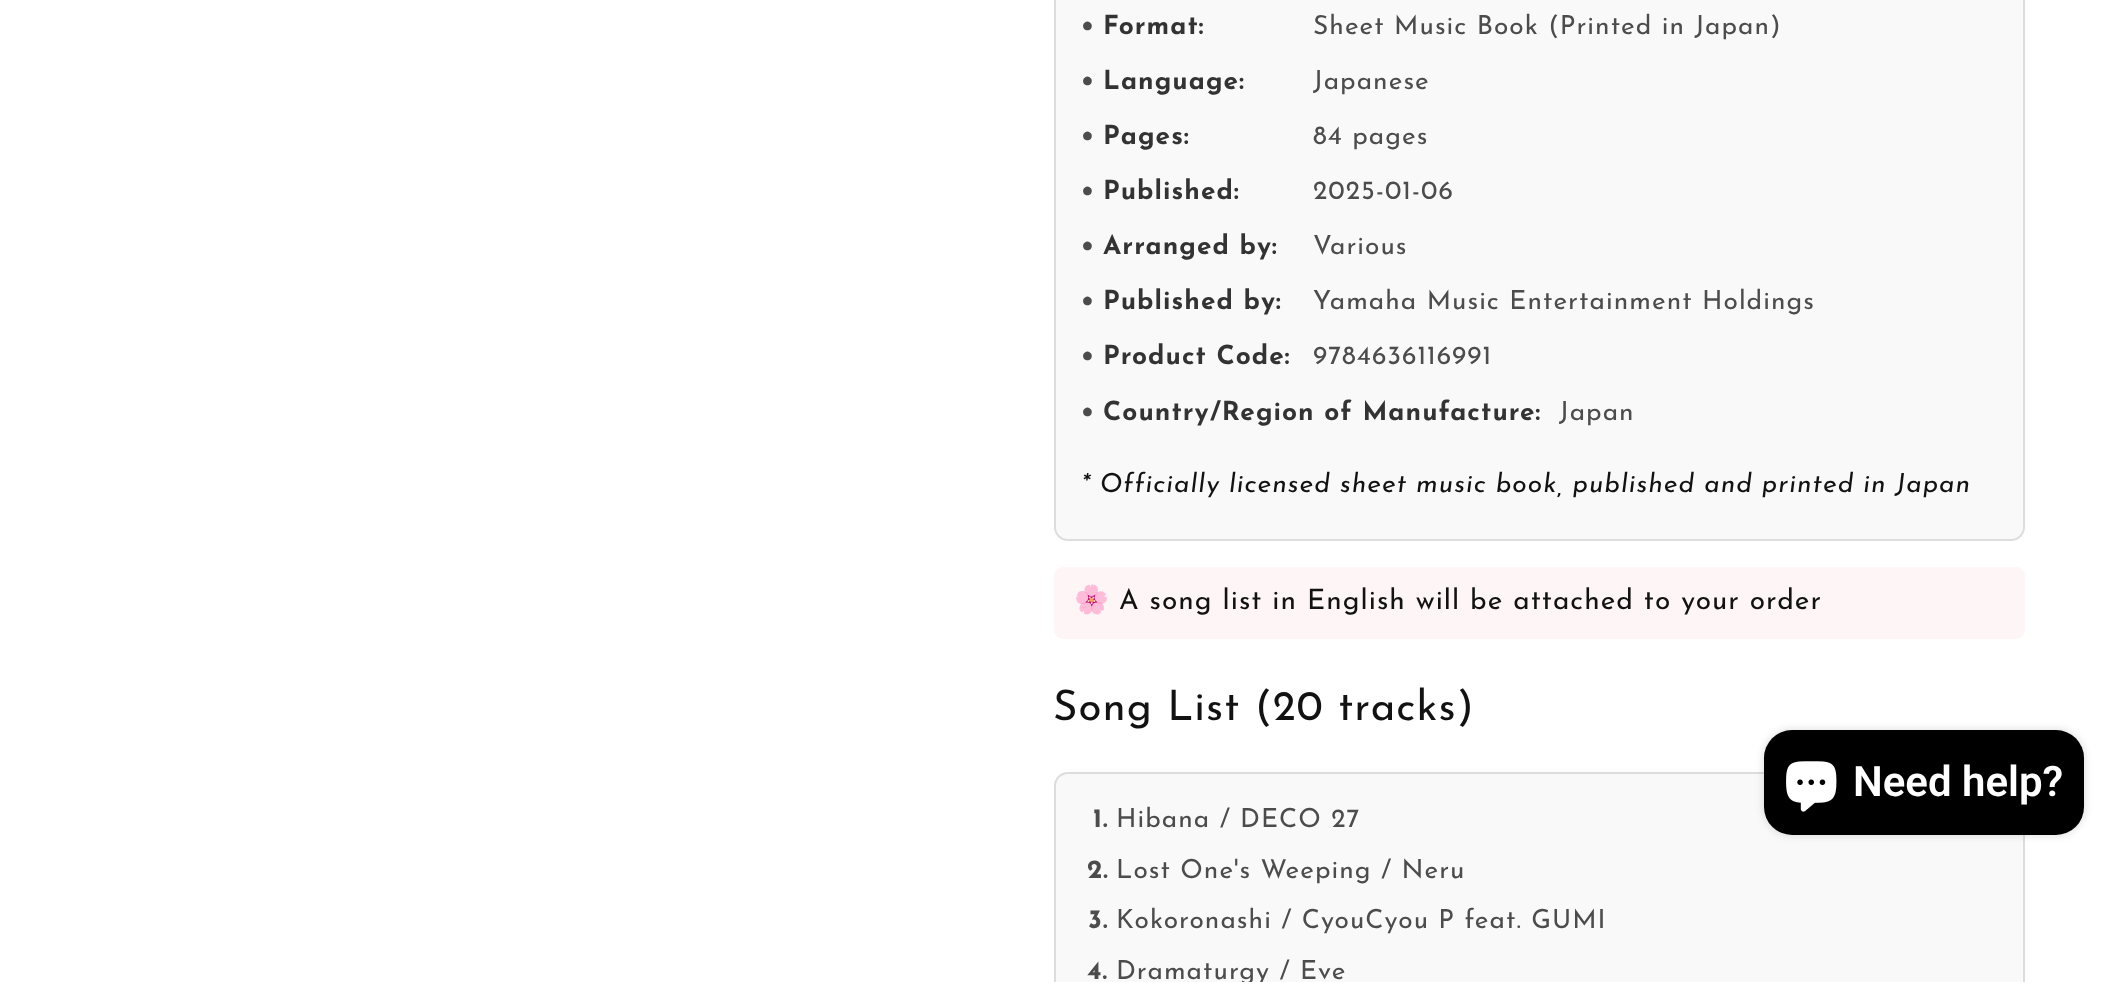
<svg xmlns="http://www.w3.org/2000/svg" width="2122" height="982">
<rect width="100%" height="100%" fill="#fff"/>
<rect x="1055" y="-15" width="969" height="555" rx="13" fill="#f9f9f9" stroke="#ddd" stroke-width="2"/>
<text x="1081" y="34" style="font-family:Josefin Sans;font-size:26.25px;font-weight:bold;letter-spacing:1.05px;fill:#4c4c4c">•</text>
<text x="1103" y="34" style="font-family:Josefin Sans;font-size:26.25px;font-weight:bold;letter-spacing:1.05px;fill:#333">Format:</text>
<text x="1313" y="34" style="font-family:Josefin Sans;font-size:26.25px;letter-spacing:1.05px;fill:#4c4c4c">Sheet Music Book (Printed in Japan)</text>
<text x="1081" y="89" style="font-family:Josefin Sans;font-size:26.25px;font-weight:bold;letter-spacing:1.05px;fill:#4c4c4c">•</text>
<text x="1103" y="89" style="font-family:Josefin Sans;font-size:26.25px;font-weight:bold;letter-spacing:1.05px;fill:#333">Language:</text>
<text x="1313" y="89" style="font-family:Josefin Sans;font-size:26.25px;letter-spacing:1.05px;fill:#4c4c4c">Japanese</text>
<text x="1081" y="144" style="font-family:Josefin Sans;font-size:26.25px;font-weight:bold;letter-spacing:1.05px;fill:#4c4c4c">•</text>
<text x="1103" y="144" style="font-family:Josefin Sans;font-size:26.25px;font-weight:bold;letter-spacing:1.05px;fill:#333">Pages:</text>
<text x="1313" y="144" style="font-family:Josefin Sans;font-size:26.25px;letter-spacing:1.05px;fill:#4c4c4c">84 pages</text>
<text x="1081" y="199" style="font-family:Josefin Sans;font-size:26.25px;font-weight:bold;letter-spacing:1.05px;fill:#4c4c4c">•</text>
<text x="1103" y="199" style="font-family:Josefin Sans;font-size:26.25px;font-weight:bold;letter-spacing:1.05px;fill:#333">Published:</text>
<text x="1313" y="199" style="font-family:Josefin Sans;font-size:26.25px;letter-spacing:1.05px;fill:#4c4c4c">2025-01-06</text>
<text x="1081" y="254" style="font-family:Josefin Sans;font-size:26.25px;font-weight:bold;letter-spacing:1.05px;fill:#4c4c4c">•</text>
<text x="1103" y="254" style="font-family:Josefin Sans;font-size:26.25px;font-weight:bold;letter-spacing:1.05px;fill:#333">Arranged by:</text>
<text x="1313" y="254" style="font-family:Josefin Sans;font-size:26.25px;letter-spacing:1.05px;fill:#4c4c4c">Various</text>
<text x="1081" y="309" style="font-family:Josefin Sans;font-size:26.25px;font-weight:bold;letter-spacing:1.05px;fill:#4c4c4c">•</text>
<text x="1103" y="309" style="font-family:Josefin Sans;font-size:26.25px;font-weight:bold;letter-spacing:1.05px;fill:#333">Published by:</text>
<text x="1313" y="309" style="font-family:Josefin Sans;font-size:26.25px;letter-spacing:1.05px;fill:#4c4c4c">Yamaha Music Entertainment Holdings</text>
<text x="1081" y="364" style="font-family:Josefin Sans;font-size:26.25px;font-weight:bold;letter-spacing:1.05px;fill:#4c4c4c">•</text>
<text x="1103" y="364" style="font-family:Josefin Sans;font-size:26.25px;font-weight:bold;letter-spacing:1.05px;fill:#333">Product Code:</text>
<text x="1313" y="364" style="font-family:Josefin Sans;font-size:26.25px;letter-spacing:1.05px;fill:#4c4c4c">9784636116991</text>
<text x="1081" y="420" style="font-family:Josefin Sans;font-size:26.25px;font-weight:bold;letter-spacing:1.05px;fill:#4c4c4c">•</text>
<text x="1103" y="420" style="font-family:Josefin Sans;font-size:26.25px;font-weight:bold;letter-spacing:1.05px;fill:#333">Country/Region of Manufacture:</text>
<text x="1559" y="420" style="font-family:Josefin Sans;font-size:26.25px;letter-spacing:1.05px;fill:#4c4c4c">Japan</text>
<text x="1081" y="492" style="font-family:Josefin Sans;font-size:26.25px;font-style:italic;letter-spacing:1.05px;fill:#121212">* Officially licensed sheet music book, published and printed in Japan</text>
<rect x="1054" y="567" width="971" height="72" rx="9" fill="#fef5f6"/>
<text x="1074" y="609" style="font-family:Noto Color Emoji;font-size:28px;letter-spacing:1.05px;fill:#121212">🌸</text>
<text x="1119" y="609" style="font-family:Josefin Sans;font-size:28px;letter-spacing:1.05px;fill:#121212">A song list in English will be attached to your order</text>
<text x="1053" y="720" style="font-family:Josefin Sans;font-size:42px;letter-spacing:1.05px;fill:#121212">Song List (20 tracks)</text>
<rect x="1055" y="773" width="969" height="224" rx="13" fill="#f9f9f9" stroke="#ddd" stroke-width="2"/>
<text x="1093" y="827" style="font-family:Josefin Sans;font-size:26.25px;font-weight:bold;letter-spacing:1.05px;fill:#4c4c4c">1.</text>
<text x="1116" y="827" style="font-family:Josefin Sans;font-size:26.25px;letter-spacing:1.05px;fill:#4c4c4c">Hibana / DECO 27</text>
<text x="1087" y="878" style="font-family:Josefin Sans;font-size:26.25px;font-weight:bold;letter-spacing:1.05px;fill:#4c4c4c">2.</text>
<text x="1116" y="878" style="font-family:Josefin Sans;font-size:26.25px;letter-spacing:1.05px;fill:#4c4c4c">Lost One's Weeping / Neru</text>
<text x="1088" y="928" style="font-family:Josefin Sans;font-size:26.25px;font-weight:bold;letter-spacing:1.05px;fill:#4c4c4c">3.</text>
<text x="1116" y="928" style="font-family:Josefin Sans;font-size:26.25px;letter-spacing:1.05px;fill:#4c4c4c">Kokoronashi / CyouCyou P feat. GUMI</text>
<text x="1087" y="979" style="font-family:Josefin Sans;font-size:26.25px;font-weight:bold;letter-spacing:1.05px;fill:#4c4c4c">4.</text>
<text x="1116" y="979" style="font-family:Josefin Sans;font-size:26.25px;letter-spacing:1.05px;fill:#4c4c4c">Dramaturgy / Eve</text>
<rect x="1764" y="730" width="320" height="105" rx="28" fill="#00000026" filter="blur(4.5px)"/>
<rect x="1764" y="730" width="320" height="105" rx="28" fill="#000"/>
<image x="1786" y="761" width="51" height="51" href="media/1.png"/>
<text x="1853" y="796" style="font-family:Roboto;font-size:42px;font-weight:600;fill:#fff">Need help?</text>
</svg>
